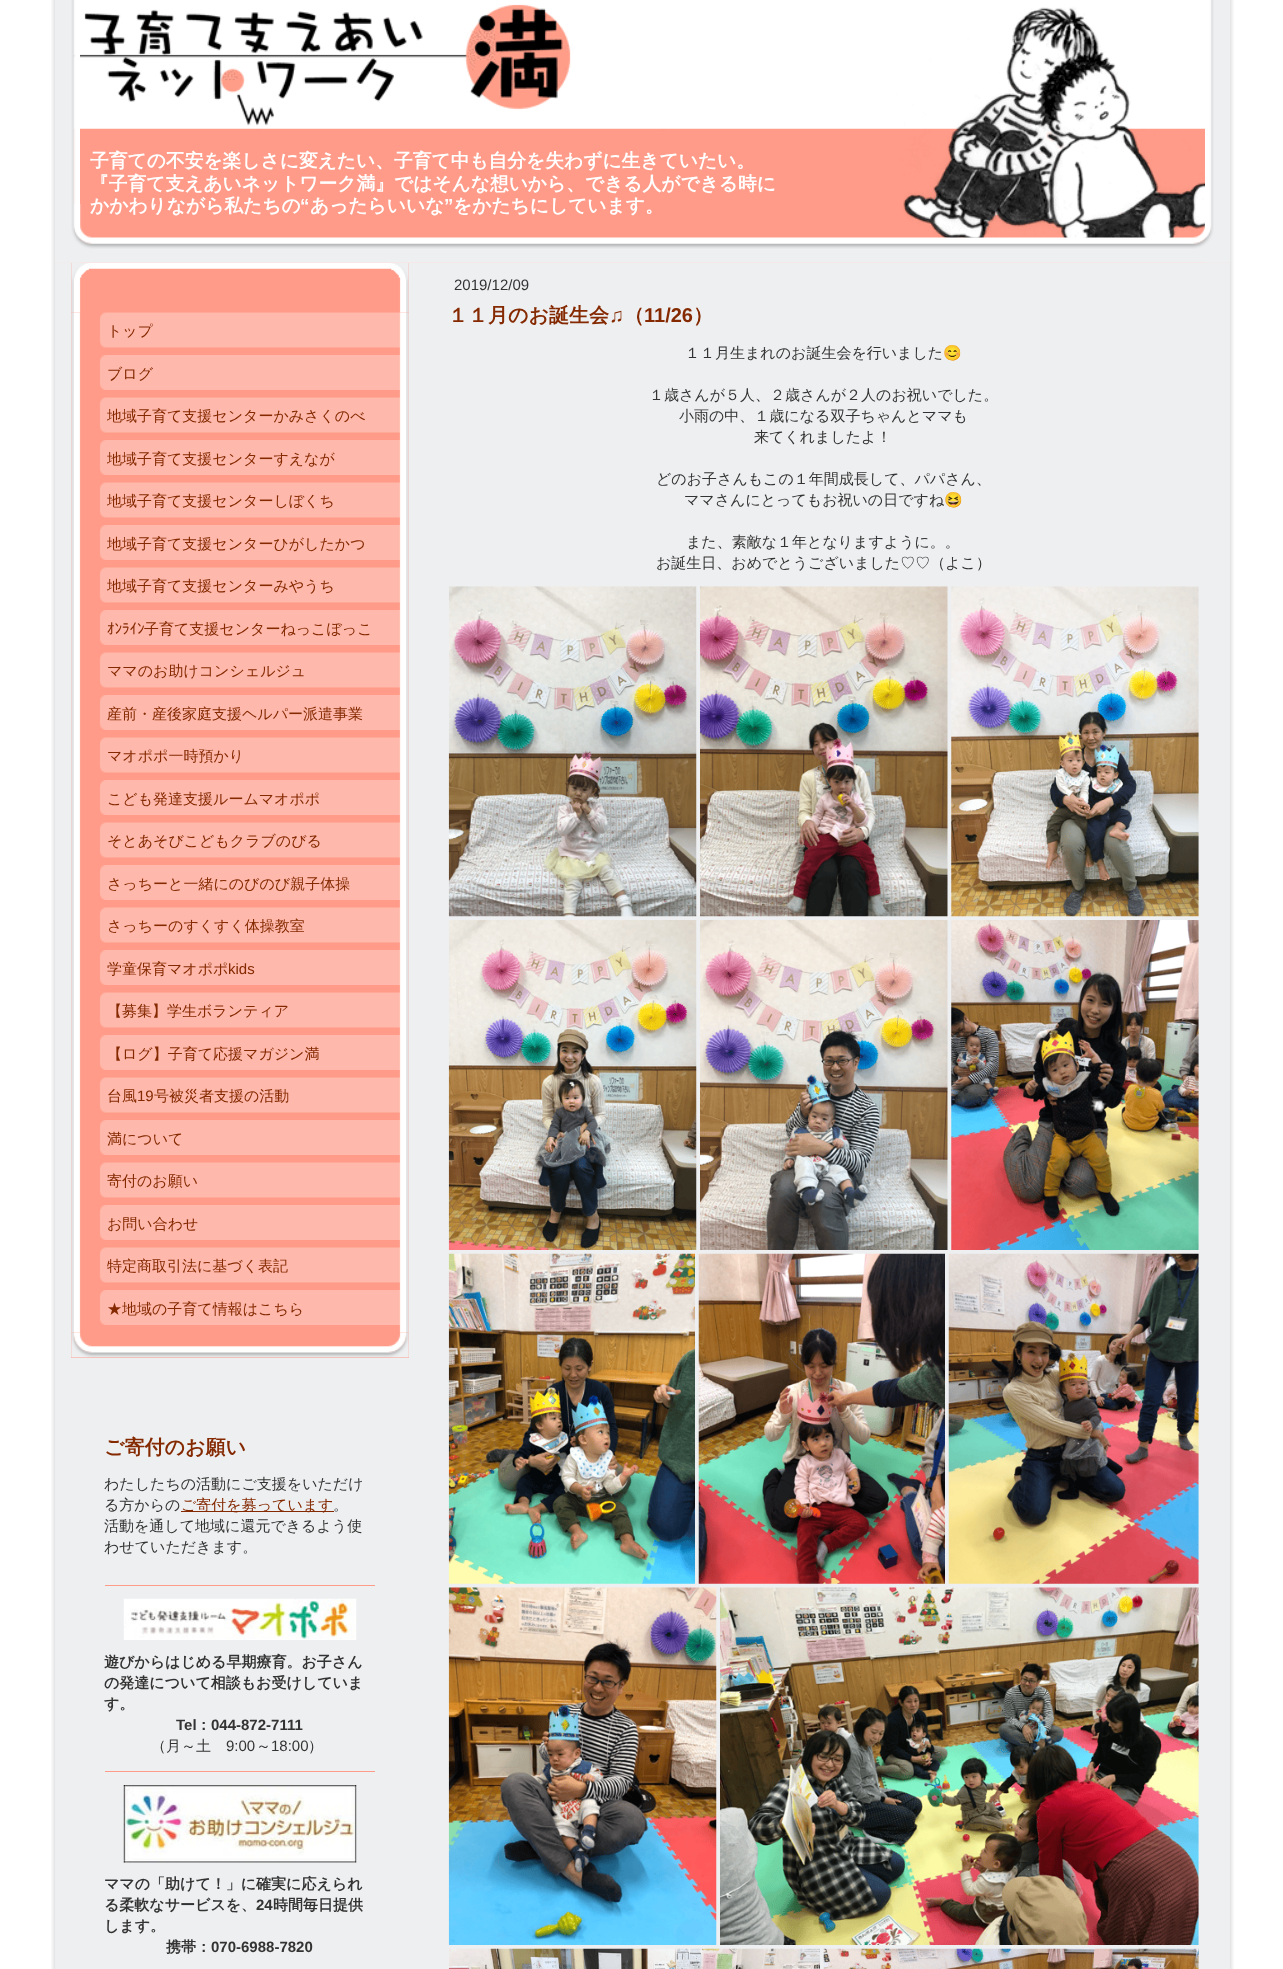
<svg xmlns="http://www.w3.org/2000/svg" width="1283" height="1969">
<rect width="100%" height="100%" fill="#fff"/>
<image x="51" y="0" width="1183" height="1969" href="media/1.png"/>
<rect x="55" y="262" width="1175" height="1" fill="#fcf8f8"/>
<image x="55" y="0" width="1175" height="263" href="media/5.png"/>
<image x="55" y="0" width="26" height="32" href="media/2.png"/>
<text x="90" y="212" style="font-family:WenQuanYi Zen Hei;font-size:18.75px;font-weight:bold;fill:#fff">かかわりながら私たちの</text>
<text x="300" y="212" style="font-family:Liberation Sans;font-size:18.75px;font-weight:bold;fill:#fff">“</text>
<text x="310" y="212" style="font-family:WenQuanYi Zen Hei;font-size:18.75px;font-weight:bold;fill:#fff">あったらいいな</text>
<text x="444" y="212" style="font-family:Liberation Sans;font-size:18.75px;font-weight:bold;fill:#fff">”</text>
<text x="453" y="212" style="font-family:WenQuanYi Zen Hei;font-size:18.75px;font-weight:bold;fill:#fff">をかたちにしています。</text>
<image x="55" y="203" width="1175" height="60" href="media/6.png"/>
<image x="1205" y="0" width="25" height="263" href="media/3.png"/>
<image x="55" y="31" width="25" height="232" href="media/4.png"/>
<text x="90" y="167" style="font-family:WenQuanYi Zen Hei;font-size:18.75px;font-weight:bold;fill:#fff">子育ての不安を楽しさに変えたい、子育て中も自分を失わずに生きていたい。</text>
<text x="90" y="190" style="font-family:WenQuanYi Zen Hei;font-size:18.75px;font-weight:bold;fill:#fff">『子育て支えあいネットワーク満』ではそんな想いから、できる人ができる時に</text>
<rect x="71" y="263" width="338" height="1095" fill="#ff9b88"/>
<image x="71" y="263" width="338" height="50" href="media/7.png"/>
<image x="71" y="1332" width="338" height="26" href="media/8.png"/>
<image x="71" y="312" width="338" height="1021" href="media/9.png"/>
<image x="99" y="312" width="301" height="36" href="media/10.png"/>
<text x="107" y="336" style="font-family:WenQuanYi Zen Hei;font-size:15px;font-weight:500;fill:#842900">トップ</text>
<image x="99" y="355" width="301" height="35" href="media/11.png"/>
<text x="107" y="379" style="font-family:WenQuanYi Zen Hei;font-size:15px;font-weight:500;fill:#842900">ブログ</text>
<image x="99" y="397" width="301" height="36" href="media/12.png"/>
<text x="107" y="421" style="font-family:WenQuanYi Zen Hei;font-size:15px;font-weight:500;fill:#842900">地域子育て支援センターかみさくのべ</text>
<image x="99" y="440" width="301" height="35" href="media/11.png"/>
<text x="107" y="464" style="font-family:WenQuanYi Zen Hei;font-size:15px;font-weight:500;fill:#842900">地域子育て支援センターすえなが</text>
<image x="99" y="482" width="301" height="36" href="media/12.png"/>
<text x="107" y="506" style="font-family:WenQuanYi Zen Hei;font-size:15px;font-weight:500;fill:#842900">地域子育て支援センターしぼくち</text>
<image x="99" y="525" width="301" height="35" href="media/11.png"/>
<text x="107" y="549" style="font-family:WenQuanYi Zen Hei;font-size:15px;font-weight:500;fill:#842900">地域子育て支援センターひがしたかつ</text>
<image x="99" y="567" width="301" height="36" href="media/12.png"/>
<text x="107" y="591" style="font-family:WenQuanYi Zen Hei;font-size:15px;font-weight:500;fill:#842900">地域子育て支援センターみやうち</text>
<image x="99" y="610" width="301" height="35" href="media/11.png"/>
<text x="107" y="634" style="font-family:IPAPGothic;font-size:15px;fill:#842900">ｵﾝﾗｲﾝ</text>
<text x="144" y="634" style="font-family:WenQuanYi Zen Hei;font-size:15px;font-weight:500;fill:#842900">子育て支援センターねっこぼっこ</text>
<image x="99" y="652" width="301" height="36" href="media/12.png"/>
<text x="107" y="676" style="font-family:WenQuanYi Zen Hei;font-size:15px;font-weight:500;fill:#842900">ママのお助けコンシェルジュ</text>
<image x="99" y="695" width="301" height="35" href="media/11.png"/>
<text x="107" y="719" style="font-family:WenQuanYi Zen Hei;font-size:15px;font-weight:500;fill:#842900">産前・産後家庭支援ヘルパー派遣事業</text>
<image x="99" y="737" width="301" height="36" href="media/12.png"/>
<text x="107" y="761" style="font-family:WenQuanYi Zen Hei;font-size:15px;font-weight:500;fill:#842900">マオポポ一時預かり</text>
<image x="99" y="780" width="301" height="35" href="media/13.png"/>
<text x="107" y="804" style="font-family:WenQuanYi Zen Hei;font-size:15px;font-weight:500;fill:#842900">こども発達支援ルームマオポポ</text>
<image x="99" y="822" width="301" height="36" href="media/12.png"/>
<text x="107" y="846" style="font-family:WenQuanYi Zen Hei;font-size:15px;font-weight:500;fill:#842900">そとあそびこどもクラブのびる</text>
<image x="99" y="865" width="301" height="35" href="media/11.png"/>
<text x="107" y="889" style="font-family:WenQuanYi Zen Hei;font-size:15px;font-weight:500;fill:#842900">さっちーと一緒にのびのび親子体操</text>
<image x="99" y="907" width="301" height="36" href="media/12.png"/>
<text x="107" y="931" style="font-family:WenQuanYi Zen Hei;font-size:15px;font-weight:500;fill:#842900">さっちーのすくすく体操教室</text>
<image x="99" y="950" width="301" height="35" href="media/11.png"/>
<text x="107" y="974" style="font-family:WenQuanYi Zen Hei;font-size:15px;font-weight:500;fill:#842900">学童保育マオポポ</text>
<text x="228" y="974" style="font-family:Liberation Sans;font-size:15px;fill:#842900">kids</text>
<image x="99" y="992" width="301" height="36" href="media/12.png"/>
<text x="107" y="1016" style="font-family:WenQuanYi Zen Hei;font-size:15px;font-weight:500;fill:#842900">【募集】学生ボランティア</text>
<image x="99" y="1035" width="301" height="35" href="media/11.png"/>
<text x="107" y="1059" style="font-family:WenQuanYi Zen Hei;font-size:15px;font-weight:500;fill:#842900">【ログ】子育て応援マガジン満</text>
<image x="99" y="1077" width="301" height="36" href="media/12.png"/>
<text x="107" y="1101" style="font-family:WenQuanYi Zen Hei;font-size:15px;font-weight:500;fill:#842900">台風</text>
<text x="137" y="1101" style="font-family:Liberation Sans;font-size:15px;fill:#842900">19</text>
<text x="154" y="1101" style="font-family:WenQuanYi Zen Hei;font-size:15px;font-weight:500;fill:#842900">号被災者支援の活動</text>
<image x="99" y="1120" width="301" height="35" href="media/11.png"/>
<text x="107" y="1144" style="font-family:WenQuanYi Zen Hei;font-size:15px;font-weight:500;fill:#842900">満について</text>
<image x="99" y="1162" width="301" height="36" href="media/12.png"/>
<text x="107" y="1186" style="font-family:WenQuanYi Zen Hei;font-size:15px;font-weight:500;fill:#842900">寄付のお願い</text>
<image x="99" y="1205" width="301" height="35" href="media/11.png"/>
<text x="107" y="1229" style="font-family:WenQuanYi Zen Hei;font-size:15px;font-weight:500;fill:#842900">お問い合わせ</text>
<image x="99" y="1247" width="301" height="36" href="media/12.png"/>
<text x="107" y="1271" style="font-family:WenQuanYi Zen Hei;font-size:15px;font-weight:500;fill:#842900">特定商取引法に基づく表記</text>
<image x="99" y="1290" width="301" height="35" href="media/11.png"/>
<text x="107" y="1314" style="font-family:WenQuanYi Zen Hei;font-size:15px;font-weight:500;fill:#842900">★地域の子育て情報はこちら</text>
<text x="104" y="1454" style="font-family:WenQuanYi Zen Hei;font-size:20px;font-weight:bold;fill:#842900">ご寄付のお願い</text>
<text x="104" y="1489" style="font-family:WenQuanYi Zen Hei;font-size:15px;font-weight:500;fill:#333">わたしたちの活動にご支援をいただけ</text>
<text x="104" y="1510" style="font-family:WenQuanYi Zen Hei;font-size:15px;font-weight:500;fill:#333">る方からの</text>
<rect x="181" y="1511" width="153" height="1" fill="#842900"/>
<text x="181" y="1510" style="font-family:WenQuanYi Zen Hei;font-size:15px;font-weight:500;fill:#842900">ご寄付を募っています</text>
<text x="333" y="1510" style="font-family:WenQuanYi Zen Hei;font-size:15px;font-weight:500;fill:#333">。</text>
<text x="104" y="1531" style="font-family:WenQuanYi Zen Hei;font-size:15px;font-weight:500;fill:#333">活動を通して地域に還元できるよう使</text>
<text x="104" y="1552" style="font-family:WenQuanYi Zen Hei;font-size:15px;font-weight:500;fill:#333">わせていただきます。</text>
<rect x="105" y="1585" width="270" height="1" fill="#ff9b88"/>
<image x="123" y="1598" width="234" height="42" href="media/14.png"/>
<text x="104" y="1667" style="font-family:WenQuanYi Zen Hei;font-size:15px;font-weight:bold;fill:#333">遊びからはじめる早期療育。お子さん</text>
<text x="104" y="1688" style="font-family:WenQuanYi Zen Hei;font-size:15px;font-weight:bold;fill:#333">の発達について相談もお受けしていま</text>
<text x="104" y="1709" style="font-family:WenQuanYi Zen Hei;font-size:15px;font-weight:bold;fill:#333">す。</text>
<text x="176" y="1730" style="font-family:Liberation Sans;font-size:15px;font-weight:bold;fill:#333">Tel</text>
<text x="196" y="1730" style="font-family:WenQuanYi Zen Hei;font-size:15px;font-weight:bold;fill:#333">：</text>
<text x="211" y="1730" style="font-family:Liberation Sans;font-size:15px;font-weight:bold;fill:#333">044-872-7111</text>
<text x="151" y="1751" style="font-family:WenQuanYi Zen Hei;font-size:15px;font-weight:500;fill:#333">（月～土</text>
<text x="226" y="1751" style="font-family:Liberation Sans;font-size:15px;fill:#333">9:00</text>
<text x="256" y="1751" style="font-family:WenQuanYi Zen Hei;font-size:15px;font-weight:500;fill:#333">～</text>
<text x="271" y="1751" style="font-family:Liberation Sans;font-size:15px;fill:#333">18:00</text>
<text x="308" y="1751" style="font-family:WenQuanYi Zen Hei;font-size:15px;font-weight:500;fill:#333">）</text>
<rect x="105" y="1771" width="270" height="1" fill="#ff9b88"/>
<image x="123" y="1785" width="234" height="78" href="media/15.png"/>
<text x="104" y="1889" style="font-family:WenQuanYi Zen Hei;font-size:15px;font-weight:bold;fill:#333">ママの「助けて！」に確実に応えられ</text>
<text x="104" y="1910" style="font-family:WenQuanYi Zen Hei;font-size:15px;font-weight:bold;fill:#333">る柔軟なサービスを、</text>
<text x="256" y="1910" style="font-family:Liberation Sans;font-size:15px;font-weight:bold;fill:#333">24</text>
<text x="273" y="1910" style="font-family:WenQuanYi Zen Hei;font-size:15px;font-weight:bold;fill:#333">時間毎日提供</text>
<text x="104" y="1931" style="font-family:WenQuanYi Zen Hei;font-size:15px;font-weight:bold;fill:#333">します。</text>
<text x="166" y="1952" style="font-family:WenQuanYi Zen Hei;font-size:15px;font-weight:bold;fill:#333">携帯：</text>
<text x="211" y="1952" style="font-family:Liberation Sans;font-size:15px;font-weight:bold;fill:#333">070-6988-7820</text>
<text x="454" y="290" style="font-family:Liberation Sans;font-size:15px;fill:#333">2019/12/09</text>
<text x="448" y="322" style="font-family:WenQuanYi Zen Hei;font-size:20px;font-weight:bold;fill:#842900">１１月のお誕生会</text>
<text x="609" y="322" style="font-family:Liberation Sans;font-size:20px;font-weight:bold;fill:#842900">♫</text>
<text x="624" y="322" style="font-family:WenQuanYi Zen Hei;font-size:20px;font-weight:bold;fill:#842900">（</text>
<text x="644" y="322" style="font-family:Liberation Sans;font-size:20px;font-weight:bold;fill:#842900">11/26</text>
<text x="693" y="322" style="font-family:WenQuanYi Zen Hei;font-size:20px;font-weight:bold;fill:#842900">）</text>
<text x="685" y="358" style="font-family:WenQuanYi Zen Hei;font-size:15px;font-weight:500;fill:#333">１１月生まれのお誕生会を行いました</text>
<text x="943" y="358" style="font-family:Noto Color Emoji;font-size:15px;fill:#333">😊</text>
<text x="649" y="400" style="font-family:WenQuanYi Zen Hei;font-size:15px;font-weight:500;fill:#333">１歳さんが５人、２歳さんが２人のお祝いでした。</text>
<text x="679" y="421" style="font-family:WenQuanYi Zen Hei;font-size:15px;font-weight:500;fill:#333">小雨の中、１歳になる双子ちゃんとママも</text>
<text x="754" y="442" style="font-family:WenQuanYi Zen Hei;font-size:15px;font-weight:500;fill:#333">来てくれましたよ！</text>
<text x="656" y="484" style="font-family:WenQuanYi Zen Hei;font-size:15px;font-weight:500;fill:#333">どのお子さんもこの１年間成長して、パパさん、</text>
<text x="684" y="505" style="font-family:WenQuanYi Zen Hei;font-size:15px;font-weight:500;fill:#333">ママさんにとってもお祝いの日ですね</text>
<text x="944" y="505" style="font-family:Noto Color Emoji;font-size:15px;fill:#333">😆</text>
<text x="686" y="547" style="font-family:WenQuanYi Zen Hei;font-size:15px;font-weight:500;fill:#333">また、素敵な１年となりますように。。</text>
<text x="656" y="568" style="font-family:WenQuanYi Zen Hei;font-size:15px;font-weight:500;fill:#333">お誕生日、おめでとうございました♡♡（よこ）</text>
<image x="448" y="586" width="249" height="331" href="media/16.png"/>
<image x="700" y="586" width="248" height="331" href="media/17.png"/>
<image x="951" y="586" width="248" height="331" href="media/18.png"/>
<image x="448" y="920" width="249" height="330" href="media/19.png"/>
<image x="700" y="920" width="248" height="330" href="media/20.png"/>
<image x="951" y="920" width="248" height="330" href="media/21.png"/>
<image x="448" y="1253" width="247" height="331" href="media/22.png"/>
<image x="698" y="1253" width="247" height="331" href="media/23.png"/>
<image x="948" y="1253" width="251" height="331" href="media/24.png"/>
<image x="448" y="1587" width="269" height="358" href="media/25.png"/>
<image x="720" y="1587" width="479" height="358" href="media/26.png"/>
<image x="448" y="1948" width="372" height="21" href="media/27.png"/>
<image x="823" y="1948" width="376" height="21" href="media/28.png"/>
</svg>
